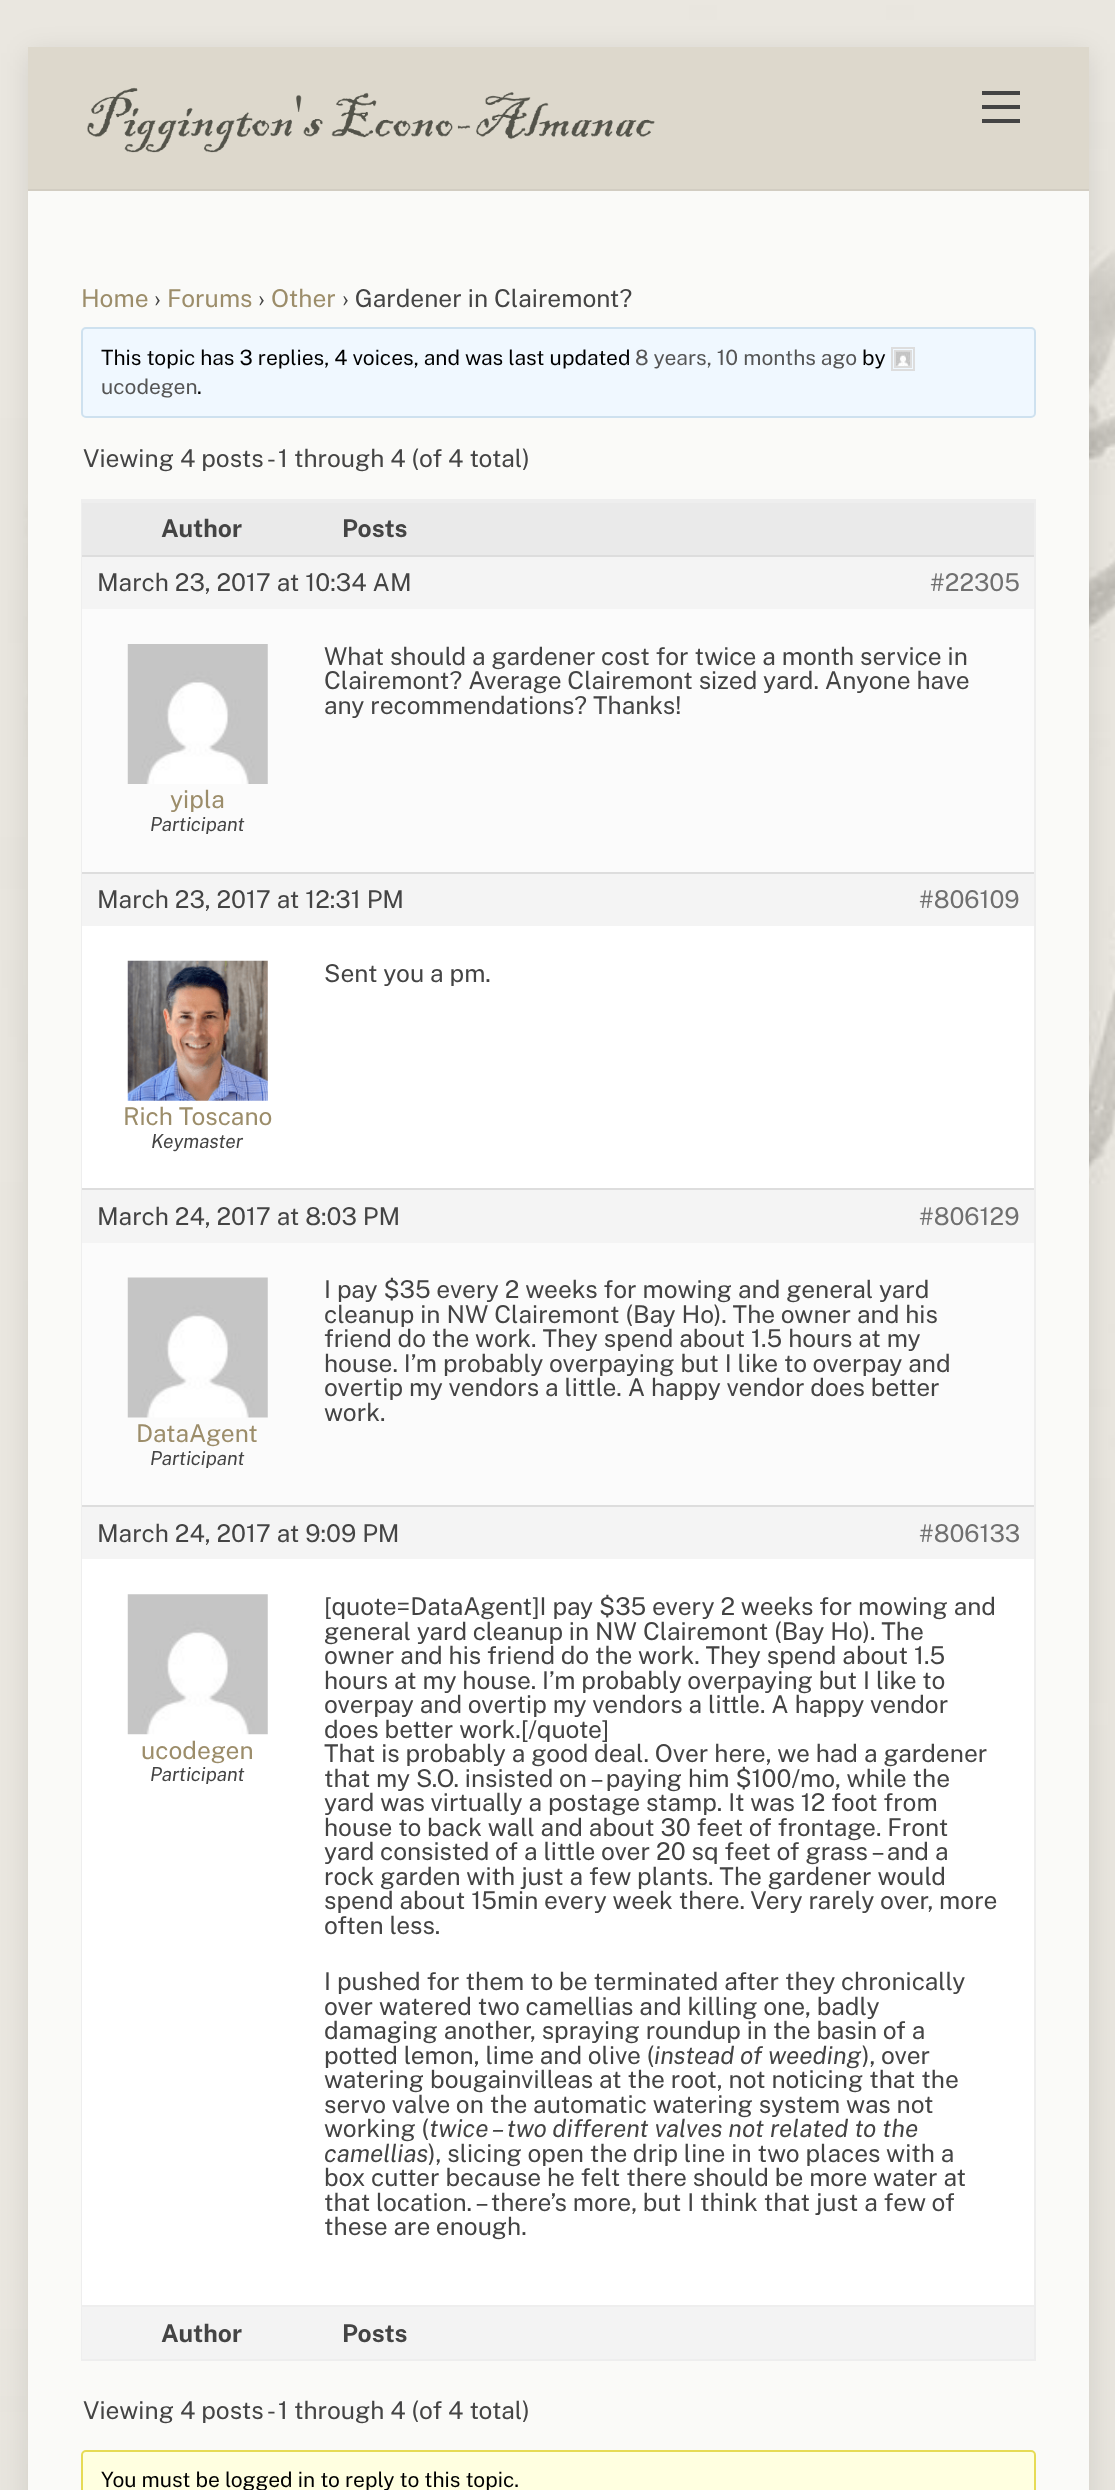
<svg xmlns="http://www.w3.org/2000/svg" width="1115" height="2490">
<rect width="100%" height="100%" fill="#fff"/>
<image x="0" y="0" width="1115" height="2490" href="media/1.png"/>
<rect x="28" y="53" width="1061" height="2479" fill="#0000001a" filter="blur(14px)"/>
<rect x="28" y="47" width="1061" height="142" fill="#ddd8cc"/>
<rect x="28" y="189" width="1061" height="2" fill="#d2cdc2"/>
<image x="87" y="87" width="568" height="66" href="media/2.png"/>
<rect x="982" y="119" width="38" height="4" fill="#444"/>
<rect x="982" y="91" width="38" height="4" fill="#444"/>
<rect x="982" y="105" width="38" height="4" fill="#444"/>
<rect x="28" y="191" width="1061" height="2299" fill="#fafaf8"/>
<text x="81" y="307" style="font-family:Public Sans;font-size:24.5px;fill:#9c8d6a">Home</text>
<text x="154" y="307" style="font-family:Public Sans;font-size:24.5px;fill:#444">›</text>
<text x="167" y="307" style="font-family:Public Sans;font-size:24.5px;fill:#9c8d6a">Forums</text>
<text x="258" y="307" style="font-family:Public Sans;font-size:24.5px;fill:#444">›</text>
<text x="271" y="307" style="font-family:Public Sans;font-size:24.5px;fill:#9c8d6a">Other</text>
<text x="342" y="307" style="font-family:Public Sans;font-size:24.5px;fill:#444">› Gardener in Clairemont?</text>
<rect x="82" y="328" width="953" height="89" rx="4" fill="#f0f8ff" stroke="#cee1ef" stroke-width="2"/>
<text x="101" y="365" style="font-family:Public Sans;font-size:21px;fill:#000">This topic has 3 replies, 4 voices, and was last updated</text>
<text x="635" y="365" style="font-family:Public Sans;font-size:21px;fill:#555">8 years, 10 months ago</text>
<text x="862" y="365" style="font-family:Public Sans;font-size:21px;fill:#000">by</text>
<rect x="892" y="348" width="22" height="22" fill="none" stroke="#ddd" stroke-width="2"/>
<rect x="895" y="351" width="16" height="16" fill="none" stroke="#ddd" stroke-width="2"/>
<image x="896" y="351" width="14" height="15" href="media/3.png"/>
<text x="101" y="394" style="font-family:Public Sans;font-size:21px;fill:#555">ucodegen</text>
<text x="197" y="394" style="font-family:Public Sans;font-size:21px;fill:#000">.</text>
<text x="83" y="467" style="font-family:Public Sans;font-size:24.5px;fill:#444">Viewing 4 posts - 1 through 4 (of 4 total)</text>
<rect x="82" y="500" width="953" height="1860" fill="none" stroke="#eee" stroke-width="2"/>
<rect x="82" y="503" width="952" height="52" fill="#eaeaea"/>
<rect x="82" y="501" width="952" height="2" fill="#eee"/>
<text x="161" y="537" style="font-family:Public Sans;font-size:24.5px;font-weight:bold;fill:#444">Author</text>
<text x="342" y="537" style="font-family:Public Sans;font-size:24.5px;font-weight:bold;fill:#444">Posts</text>
<rect x="82" y="557" width="952" height="52" fill="#f4f4f4"/>
<rect x="82" y="555" width="952" height="2" fill="#ddd"/>
<text x="97" y="591" style="font-family:Public Sans;font-size:24.5px;fill:#444">March 23, 2017 at 10:34 AM</text>
<text x="930" y="591" style="font-family:Public Sans;font-size:24.5px;fill:#707070">#22305</text>
<rect x="82" y="609" width="952" height="263" fill="#fbfbfb"/>
<text x="324" y="665" style="font-family:Public Sans;font-size:24.5px;fill:#444">What should a gardener cost for twice a month service in</text>
<text x="324" y="689" style="font-family:Public Sans;font-size:24.5px;fill:#444">Clairemont? Average Clairemont sized yard. Anyone have</text>
<text x="324" y="714" style="font-family:Public Sans;font-size:24.5px;fill:#444">any recommendations? Thanks!</text>
<image x="127" y="644" width="141" height="140" href="media/4.png"/>
<text x="170" y="808" style="font-family:Public Sans;font-size:24.5px;fill:#9c8d6a">yipla</text>
<text x="150" y="831" style="font-family:Public Sans;font-size:19.25px;font-style:italic;fill:#444">Participant</text>
<rect x="82" y="874" width="952" height="52" fill="#f4f4f4"/>
<rect x="82" y="872" width="952" height="2" fill="#ddd"/>
<text x="97" y="908" style="font-family:Public Sans;font-size:24.5px;fill:#444">March 23, 2017 at 12:31 PM</text>
<text x="919" y="908" style="font-family:Public Sans;font-size:24.5px;fill:#707070">#806109</text>
<rect x="82" y="926" width="952" height="262" fill="#fff"/>
<text x="324" y="982" style="font-family:Public Sans;font-size:24.5px;fill:#444">Sent you a pm.</text>
<image x="127" y="960" width="141" height="141" href="media/5.png"/>
<text x="123" y="1125" style="font-family:Public Sans;font-size:24.5px;fill:#9c8d6a">Rich Toscano</text>
<text x="151" y="1148" style="font-family:Public Sans;font-size:19.25px;font-style:italic;fill:#444">Keymaster</text>
<rect x="82" y="1190" width="952" height="53" fill="#f4f4f4"/>
<rect x="82" y="1188" width="952" height="2" fill="#ddd"/>
<text x="97" y="1225" style="font-family:Public Sans;font-size:24.5px;fill:#444">March 24, 2017 at 8:03 PM</text>
<text x="919" y="1225" style="font-family:Public Sans;font-size:24.5px;fill:#707070">#806129</text>
<rect x="82" y="1243" width="952" height="262" fill="#fbfbfb"/>
<text x="324" y="1298" style="font-family:Public Sans;font-size:24.5px;fill:#444">I pay $35 every 2 weeks for mowing and general yard</text>
<text x="324" y="1323" style="font-family:Public Sans;font-size:24.5px;fill:#444">cleanup in NW Clairemont (Bay Ho). The owner and his</text>
<text x="324" y="1347" style="font-family:Public Sans;font-size:24.5px;fill:#444">friend do the work. They spend about 1.5 hours at my</text>
<text x="324" y="1372" style="font-family:Public Sans;font-size:24.5px;fill:#444">house. I’m probably overpaying but I like to overpay and</text>
<text x="324" y="1396" style="font-family:Public Sans;font-size:24.5px;fill:#444">overtip my vendors a little. A happy vendor does better</text>
<text x="324" y="1421" style="font-family:Public Sans;font-size:24.5px;fill:#444">work.</text>
<image x="127" y="1277" width="141" height="141" href="media/6.png"/>
<text x="136" y="1442" style="font-family:Public Sans;font-size:24.5px;fill:#9c8d6a">DataAgent</text>
<text x="150" y="1465" style="font-family:Public Sans;font-size:19.25px;font-style:italic;fill:#444">Participant</text>
<rect x="82" y="1507" width="952" height="52" fill="#f4f4f4"/>
<rect x="82" y="1505" width="952" height="2" fill="#ddd"/>
<text x="97" y="1542" style="font-family:Public Sans;font-size:24.5px;fill:#444">March 24, 2017 at 9:09 PM</text>
<text x="919" y="1542" style="font-family:Public Sans;font-size:24.5px;fill:#707070">#806133</text>
<rect x="82" y="1559" width="952" height="746" fill="#fff"/>
<image x="127" y="1594" width="141" height="141" href="media/7.png"/>
<text x="141" y="1759" style="font-family:Public Sans;font-size:24.5px;fill:#9c8d6a">ucodegen</text>
<text x="150" y="1781" style="font-family:Public Sans;font-size:19.25px;font-style:italic;fill:#444">Participant</text>
<text x="324" y="1615" style="font-family:Public Sans;font-size:24.5px;fill:#444">[quote=DataAgent]I pay $35 every 2 weeks for mowing and</text>
<text x="324" y="1640" style="font-family:Public Sans;font-size:24.5px;fill:#444">general yard cleanup in NW Clairemont (Bay Ho). The</text>
<text x="324" y="1664" style="font-family:Public Sans;font-size:24.5px;fill:#444">owner and his friend do the work. They spend about 1.5</text>
<text x="324" y="1689" style="font-family:Public Sans;font-size:24.5px;fill:#444">hours at my house. I’m probably overpaying but I like to</text>
<text x="324" y="1713" style="font-family:Public Sans;font-size:24.5px;fill:#444">overpay and overtip my vendors a little. A happy vendor</text>
<text x="324" y="1738" style="font-family:Public Sans;font-size:24.5px;fill:#444">does better work.[/quote]</text>
<text x="324" y="1762" style="font-family:Public Sans;font-size:24.5px;fill:#444">That is probably a good deal. Over here, we had a gardener</text>
<text x="324" y="1787" style="font-family:Public Sans;font-size:24.5px;fill:#444">that my S.O. insisted on – paying him $100/mo, while the</text>
<text x="324" y="1811" style="font-family:Public Sans;font-size:24.5px;fill:#444">yard was virtually a postage stamp. It was 12 foot from</text>
<text x="324" y="1836" style="font-family:Public Sans;font-size:24.5px;fill:#444">house to back wall and about 30 feet of frontage. Front</text>
<text x="324" y="1860" style="font-family:Public Sans;font-size:24.5px;fill:#444">yard consisted of a little over 20 sq feet of grass – and a</text>
<text x="324" y="1885" style="font-family:Public Sans;font-size:24.5px;fill:#444">rock garden with just a few plants. The gardener would</text>
<text x="324" y="1909" style="font-family:Public Sans;font-size:24.5px;fill:#444">spend about 15min every week there. Very rarely over, more</text>
<text x="324" y="1934" style="font-family:Public Sans;font-size:24.5px;fill:#444">often less.</text>
<text x="324" y="1990" style="font-family:Public Sans;font-size:24.5px;fill:#444">I pushed for them to be terminated after they chronically</text>
<text x="324" y="2015" style="font-family:Public Sans;font-size:24.5px;fill:#444">over watered two camellias and killing one, badly</text>
<text x="324" y="2039" style="font-family:Public Sans;font-size:24.5px;fill:#444">damaging another, spraying roundup in the basin of a</text>
<text x="324" y="2064" style="font-family:Public Sans;font-size:24.5px;fill:#444">potted lemon, lime and olive (</text>
<text x="654" y="2064" style="font-family:Public Sans;font-size:24.5px;font-style:italic;fill:#444">instead of weeding</text>
<text x="862" y="2064" style="font-family:Public Sans;font-size:24.5px;fill:#444">), over</text>
<text x="324" y="2088" style="font-family:Public Sans;font-size:24.5px;fill:#444">watering bougainvilleas at the root, not noticing that the</text>
<text x="324" y="2113" style="font-family:Public Sans;font-size:24.5px;fill:#444">servo valve on the automatic watering system was not</text>
<text x="324" y="2137" style="font-family:Public Sans;font-size:24.5px;fill:#444">working (</text>
<text x="429" y="2137" style="font-family:Public Sans;font-size:24.5px;font-style:italic;fill:#444">twice – two different valves not related to the</text>
<text x="324" y="2162" style="font-family:Public Sans;font-size:24.5px;font-style:italic;fill:#444">camellias</text>
<text x="428" y="2162" style="font-family:Public Sans;font-size:24.5px;fill:#444">), slicing open the drip line in two places with a</text>
<text x="324" y="2186" style="font-family:Public Sans;font-size:24.5px;fill:#444">box cutter because he felt there should be more water at</text>
<text x="324" y="2211" style="font-family:Public Sans;font-size:24.5px;fill:#444">that location. – there’s more, but I think that just a few of</text>
<text x="324" y="2235" style="font-family:Public Sans;font-size:24.5px;fill:#444">these are enough.</text>
<rect x="82" y="2307" width="952" height="52" fill="#f3f3f3"/>
<rect x="82" y="2305" width="952" height="2" fill="#eee"/>
<text x="161" y="2342" style="font-family:Public Sans;font-size:24.5px;font-weight:bold;fill:#444">Author</text>
<text x="342" y="2342" style="font-family:Public Sans;font-size:24.5px;font-weight:bold;fill:#444">Posts</text>
<text x="83" y="2419" style="font-family:Public Sans;font-size:24.5px;fill:#444">Viewing 4 posts - 1 through 4 (of 4 total)</text>
<rect x="82" y="2451" width="953" height="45" rx="4" fill="#ffffe0" stroke="#e6db55" stroke-width="2"/>
<text x="101" y="2487" style="font-family:Public Sans;font-size:21px;fill:#000">You must be logged in to reply to this topic.</text>
</svg>
